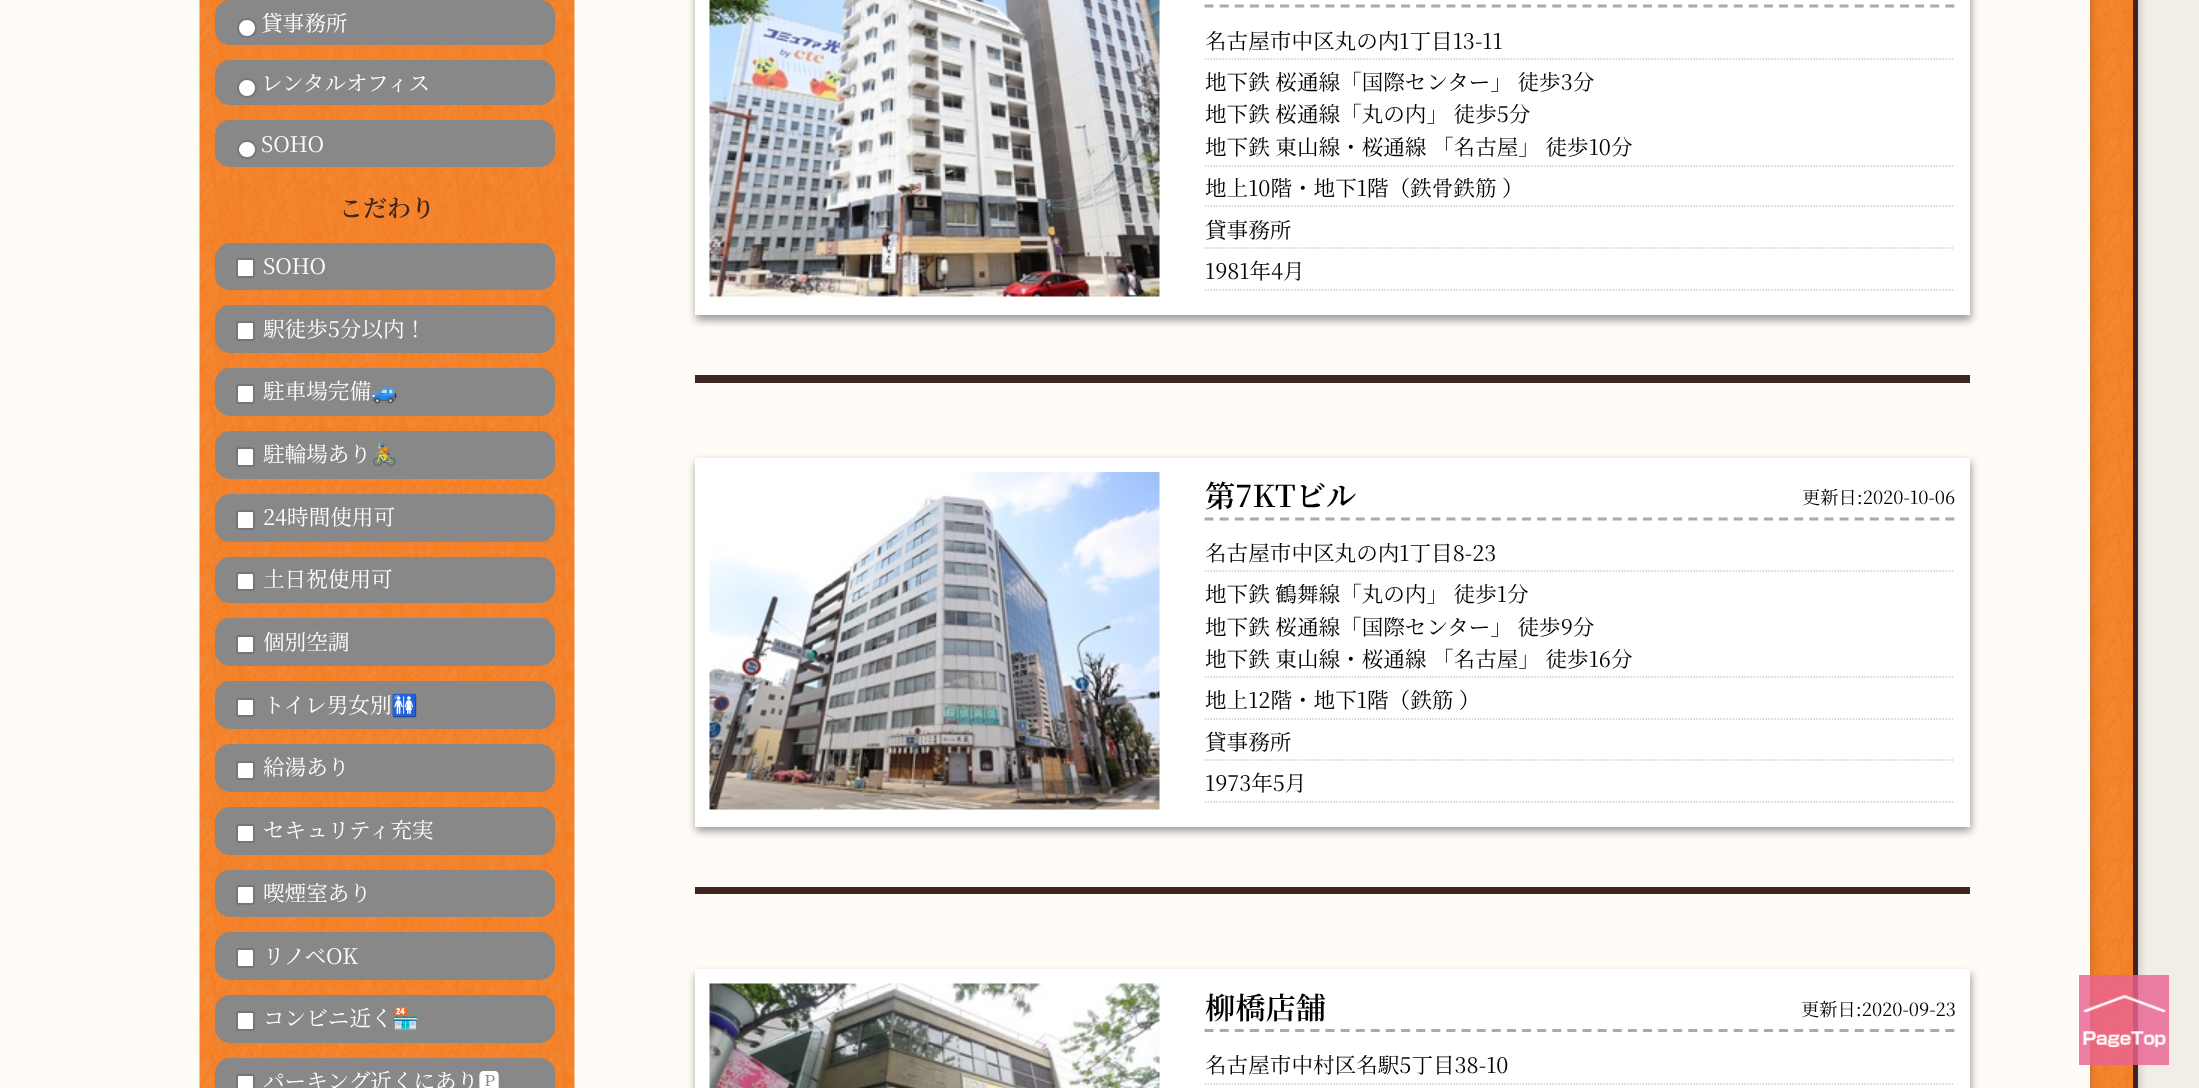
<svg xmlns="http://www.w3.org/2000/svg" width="2199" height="1088">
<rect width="100%" height="100%" fill="#f2ede7"/>
<rect x="2" y="-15" width="2137" height="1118" fill="#00000033" filter="blur(5px)"/>
<image x="2090" y="0" width="43" height="1088" href="media/1.png"/>
<rect x="2133" width="5" height="1088" fill="#3e261f"/>
<rect x="2" y="-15" width="2089" height="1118" fill="#00000033" filter="blur(5px)"/>
<rect width="2090" height="1088" fill="#fffcf7"/>
<image x="199" y="0" width="376" height="1088" href="media/2.png"/>
<rect x="215" width="340" height="45" rx="15" fill="#888"/>
<circle cx="247" cy="28" r="9" fill="#fff" stroke="#767676" stroke-width="2"/>
<text x="261" y="31" style="font-family:Noto Serif JP;font-size:21.6px;fill:#fff">貸事務所</text>
<rect x="215" y="60" width="340" height="45" rx="15" fill="#888"/>
<circle cx="247" cy="88" r="9" fill="#fff" stroke="#767676" stroke-width="2"/>
<text x="261" y="91" style="font-family:Noto Serif JP;font-size:21.6px;fill:#fff">レンタルオフィス</text>
<rect x="215" y="120" width="340" height="47" rx="15" fill="#888"/>
<rect x="238" y="141" width="18" height="17" rx="8.5" fill="#fff" stroke="#767676" stroke-width="2"/>
<text x="261" y="152" style="font-family:Noto Serif JP;font-size:21.6px;fill:#fff">SOHO</text>
<text x="339" y="217" style="font-family:Noto Serif JP;font-size:24px;font-weight:600;fill:#3e261f">こだわり</text>
<rect x="215" y="243" width="340" height="47" rx="15" fill="#888"/>
<rect x="237" y="259" width="17" height="18" rx="2" fill="#fff" stroke="#767676" stroke-width="2"/>
<text x="263" y="274" style="font-family:Noto Serif JP;font-size:21.6px;fill:#fff">SOHO</text>
<rect x="215" y="305" width="340" height="48" rx="15" fill="#888"/>
<rect x="237" y="322" width="17" height="18" rx="2" fill="#fff" stroke="#767676" stroke-width="2"/>
<text x="263" y="337" style="font-family:Noto Serif JP;font-size:21.6px;fill:#fff">駅徒歩5分以内！</text>
<rect x="215" y="368" width="340" height="48" rx="15" fill="#888"/>
<rect x="237" y="385" width="17" height="18" rx="2" fill="#fff" stroke="#767676" stroke-width="2"/>
<text x="263" y="399" style="font-family:Noto Serif JP;font-size:21.6px;fill:#fff">駐車場完備</text>
<text x="371" y="399" style="font-family:Noto Color Emoji;font-size:21.6px;fill:#fff">🚙</text>
<rect x="215" y="431" width="340" height="48" rx="15" fill="#888"/>
<rect x="237" y="448" width="17" height="18" rx="2" fill="#fff" stroke="#767676" stroke-width="2"/>
<text x="263" y="462" style="font-family:Noto Serif JP;font-size:21.6px;fill:#fff">駐輪場あり</text>
<text x="371" y="462" style="font-family:Noto Color Emoji;font-size:21.6px;fill:#fff">🚴</text>
<rect x="215" y="494" width="340" height="48" rx="15" fill="#888"/>
<rect x="237" y="511" width="17" height="18" rx="2" fill="#fff" stroke="#767676" stroke-width="2"/>
<text x="263" y="525" style="font-family:Noto Serif JP;font-size:21.6px;fill:#fff">24時間使用可</text>
<rect x="215" y="557" width="340" height="46" rx="15" fill="#888"/>
<rect x="237" y="573" width="17" height="17" rx="2" fill="#fff" stroke="#767676" stroke-width="2"/>
<text x="263" y="587" style="font-family:Noto Serif JP;font-size:21.6px;fill:#fff">土日祝使用可</text>
<rect x="215" y="618" width="340" height="48" rx="15" fill="#888"/>
<rect x="237" y="636" width="17" height="17" rx="2" fill="#fff" stroke="#767676" stroke-width="2"/>
<text x="263" y="650" style="font-family:Noto Serif JP;font-size:21.6px;fill:#fff">個別空調</text>
<rect x="215" y="681" width="340" height="48" rx="15" fill="#888"/>
<rect x="237" y="699" width="17" height="17" rx="2" fill="#fff" stroke="#767676" stroke-width="2"/>
<text x="263" y="713" style="font-family:Noto Serif JP;font-size:21.6px;fill:#fff">トイレ男女別</text>
<text x="391" y="713" style="font-family:Noto Color Emoji;font-size:21.6px;fill:#fff">🚻</text>
<rect x="215" y="744" width="340" height="48" rx="15" fill="#888"/>
<rect x="237" y="762" width="17" height="17" rx="2" fill="#fff" stroke="#767676" stroke-width="2"/>
<text x="263" y="775" style="font-family:Noto Serif JP;font-size:21.6px;fill:#fff">給湯あり</text>
<rect x="215" y="807" width="340" height="48" rx="15" fill="#888"/>
<rect x="237" y="825" width="17" height="17" rx="2" fill="#fff" stroke="#767676" stroke-width="2"/>
<text x="263" y="838" style="font-family:Noto Serif JP;font-size:21.6px;fill:#fff">セキュリティ充実</text>
<rect x="215" y="870" width="340" height="47" rx="15" fill="#888"/>
<rect x="237" y="886" width="17" height="18" rx="2" fill="#fff" stroke="#767676" stroke-width="2"/>
<text x="263" y="901" style="font-family:Noto Serif JP;font-size:21.6px;fill:#fff">喫煙室あり</text>
<rect x="215" y="932" width="340" height="48" rx="15" fill="#888"/>
<rect x="237" y="949" width="17" height="18" rx="2" fill="#fff" stroke="#767676" stroke-width="2"/>
<text x="263" y="964" style="font-family:Noto Serif JP;font-size:21.6px;fill:#fff">リノベOK</text>
<rect x="215" y="995" width="340" height="48" rx="15" fill="#888"/>
<rect x="237" y="1012" width="17" height="18" rx="2" fill="#fff" stroke="#767676" stroke-width="2"/>
<text x="263" y="1026" style="font-family:Noto Serif JP;font-size:21.6px;fill:#fff">コンビニ近く</text>
<text x="392" y="1026" style="font-family:Noto Color Emoji;font-size:21.6px;fill:#fff">🏪</text>
<rect x="215" y="1058" width="340" height="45" rx="15" fill="#888"/>
<rect x="237" y="1075" width="17" height="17" rx="2" fill="#fff" stroke="#767676" stroke-width="2"/>
<text x="263" y="1089" style="font-family:Noto Serif JP;font-size:21.6px;fill:#fff">パーキング近くにあり🅿</text>
<rect x="695" y="375" width="1275" height="8" fill="#3e261f"/>
<rect x="696" y="-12" width="1275" height="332" fill="#00000066" filter="blur(4px)"/>
<rect x="695" width="1275" height="315" fill="#fff"/>
<image x="709" y="0" width="451" height="297" href="media/3.png"/>
<path d="M1204.5 6h750" fill="none" stroke="#aaa" stroke-width="3" stroke-dasharray="9 6.12"/>
<path d="M1204.5 59h750" fill="none" stroke="#ccc" stroke-width="1.5" stroke-dasharray="1.5 1.5"/>
<text x="1205" y="49" style="font-family:Noto Serif JP;font-size:21.6px;fill:#000">名古屋市中区丸の内1丁目13-11</text>
<path d="M1204.5 166h750" fill="none" stroke="#ccc" stroke-width="1.5" stroke-dasharray="1.5 1.5"/>
<text x="1205" y="90" style="font-family:Noto Serif JP;font-size:21.6px;fill:#000">地下鉄 桜通線「国際センター」 徒歩3分</text>
<text x="1205" y="122" style="font-family:Noto Serif JP;font-size:21.6px;fill:#000">地下鉄 桜通線「丸の内」 徒歩5分</text>
<text x="1205" y="155" style="font-family:Noto Serif JP;font-size:21.6px;fill:#000">地下鉄 東山線・桜通線 「名古屋」 徒歩10分</text>
<path d="M1204.5 206h750" fill="none" stroke="#ccc" stroke-width="1.5" stroke-dasharray="1.5 1.5"/>
<text x="1205" y="196" style="font-family:Noto Serif JP;font-size:21.6px;fill:#000">地上10階・地下1階（鉄骨鉄筋 ）</text>
<path d="M1204.5 248h750" fill="none" stroke="#ccc" stroke-width="1.5" stroke-dasharray="1.5 1.5"/>
<text x="1205" y="238" style="font-family:Noto Serif JP;font-size:21.6px;fill:#000">貸事務所</text>
<path d="M1204.5 290h750" fill="none" stroke="#ccc" stroke-width="1.5" stroke-dasharray="1.5 1.5"/>
<text x="1205" y="279" style="font-family:Noto Serif JP;font-size:21.6px;fill:#000">1981年4月</text>
<rect x="695" y="887" width="1275" height="7" fill="#3e261f"/>
<rect x="696" y="462" width="1275" height="369" fill="#00000066" filter="blur(4px)"/>
<rect x="695" y="458" width="1275" height="369" fill="#fff"/>
<image x="709" y="472" width="451" height="338" href="media/4.png"/>
<path d="M1204.5 519h750" fill="none" stroke="#aaa" stroke-width="3" stroke-dasharray="9 6.12"/>
<text x="1205" y="507" style="font-family:Noto Serif JP;font-size:30.25px;font-weight:600;fill:#000">第7KTビル</text>
<text x="1802" y="504" style="font-family:Noto Serif JP;font-size:18.25px;fill:#000">更新日:2020-10-06</text>
<path d="M1204.5 571h750" fill="none" stroke="#ccc" stroke-width="1.5" stroke-dasharray="1.5 1.5"/>
<text x="1205" y="561" style="font-family:Noto Serif JP;font-size:21.6px;fill:#000">名古屋市中区丸の内1丁目8-23</text>
<path d="M1204.5 677h750" fill="none" stroke="#ccc" stroke-width="1.5" stroke-dasharray="1.5 1.5"/>
<text x="1205" y="602" style="font-family:Noto Serif JP;font-size:21.6px;fill:#000">地下鉄 鶴舞線「丸の内」 徒歩1分</text>
<text x="1205" y="635" style="font-family:Noto Serif JP;font-size:21.6px;fill:#000">地下鉄 桜通線「国際センター」 徒歩9分</text>
<text x="1205" y="667" style="font-family:Noto Serif JP;font-size:21.6px;fill:#000">地下鉄 東山線・桜通線 「名古屋」 徒歩16分</text>
<path d="M1204.5 719h750" fill="none" stroke="#ccc" stroke-width="1.5" stroke-dasharray="1.5 1.5"/>
<text x="1205" y="708" style="font-family:Noto Serif JP;font-size:21.6px;fill:#000">地上12階・地下1階（鉄筋 ）</text>
<path d="M1204.5 760h750" fill="none" stroke="#ccc" stroke-width="1.5" stroke-dasharray="1.5 1.5"/>
<text x="1205" y="750" style="font-family:Noto Serif JP;font-size:21.6px;fill:#000">貸事務所</text>
<path d="M1204.5 802h750" fill="none" stroke="#ccc" stroke-width="1.5" stroke-dasharray="1.5 1.5"/>
<text x="1205" y="791" style="font-family:Noto Serif JP;font-size:21.6px;fill:#000">1973年5月</text>
<rect x="696" y="974" width="1275" height="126" fill="#00000066" filter="blur(4px)"/>
<rect x="695" y="969" width="1275" height="119" fill="#fff"/>
<image x="709" y="983" width="451" height="105" href="media/5.png"/>
<path d="M1204.5 1030.5h750" fill="none" stroke="#aaa" stroke-width="3" stroke-dasharray="9 6.12"/>
<text x="1205" y="1019" style="font-family:Noto Serif JP;font-size:30.25px;font-weight:600;fill:#000">柳橋店舗</text>
<text x="1801" y="1016" style="font-family:Noto Serif JP;font-size:18.25px;fill:#000">更新日:2020-09-23</text>
<path d="M1204.5 1084h750" fill="none" stroke="#ccc" stroke-width="1.5" stroke-dasharray="1.5 1.5"/>
<text x="1205" y="1073" style="font-family:Noto Serif JP;font-size:21.6px;fill:#000">名古屋市中村区名駅5丁目38-10</text>
<image x="2079" y="975" width="90" height="90" href="media/6.png"/>
</svg>
